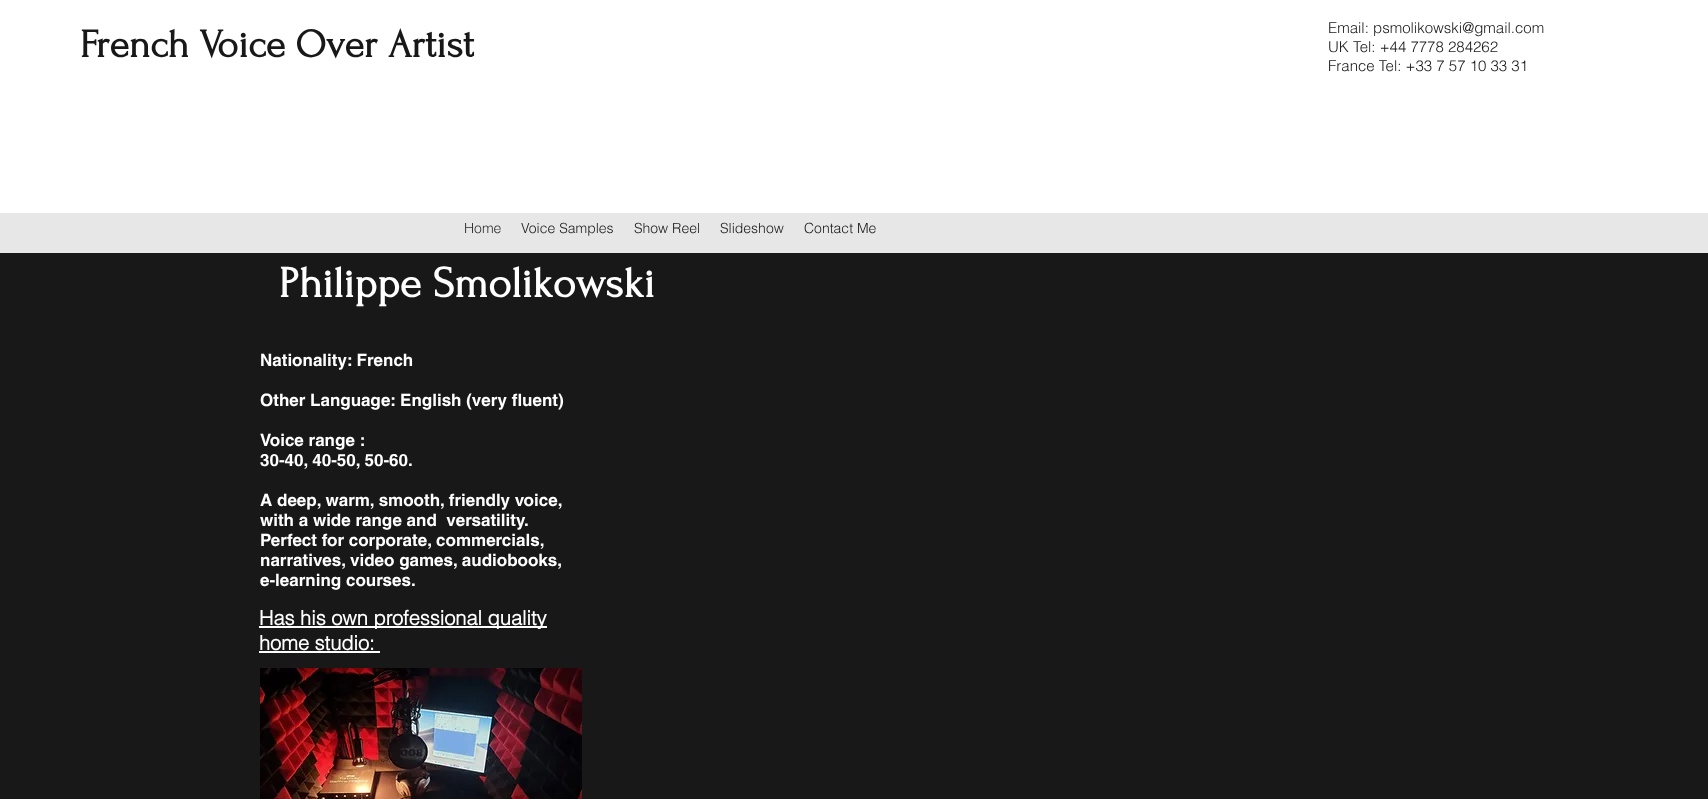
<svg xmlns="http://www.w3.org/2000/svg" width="1708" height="799">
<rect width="100%" height="100%" fill="#fff"/>
<text x="80" y="57" style="font-family:Forum;font-size:40px;font-weight:bold;fill:#181818">French Voice Over Artist</text>
<text x="1328" y="33" style="font-family:helvetica;font-size:15px;font-weight:300;fill:#181818">Email: psmolikowski@gmail.com</text>
<text x="1328" y="52" style="font-family:helvetica;font-size:15px;font-weight:300;fill:#181818">UK Tel: +44 7778 284262</text>
<text x="1328" y="71" style="font-family:helvetica;font-size:15px;font-weight:300;fill:#181818">France Tel: +33 7 57 10 33 31</text>
<rect y="213" width="1708" height="40" fill="#e7e7e7"/>
<text x="464" y="233" style="font-family:helvetica;font-size:14px;font-weight:300;fill:#2d2d2d">Home</text>
<text x="521" y="233" style="font-family:helvetica;font-size:14px;font-weight:300;fill:#181818">Voice Samples</text>
<text x="634" y="233" style="font-family:helvetica;font-size:14px;font-weight:300;fill:#181818">Show Reel</text>
<text x="720" y="233" style="font-family:helvetica;font-size:14px;font-weight:300;fill:#181818">Slideshow</text>
<text x="804" y="233" style="font-family:helvetica;font-size:14px;font-weight:300;fill:#181818">Contact Me</text>
<rect y="253" width="1708" height="546" fill="#181818"/>
<text x="279" y="297" style="font-family:Forum;font-size:44px;font-weight:bold;fill:#fff">Philippe Smolikowski</text>
<text x="260" y="366" style="font-family:helvetica;font-size:17px;font-weight:bold;fill:#fff">Nationality: French</text>
<text x="260" y="406" style="font-family:helvetica;font-size:17px;font-weight:bold;fill:#fff">Other Language: English (very fluent)</text>
<text x="260" y="446" style="font-family:helvetica;font-size:17px;font-weight:bold;fill:#fff">Voice range :</text>
<text x="260" y="466" style="font-family:helvetica;font-size:17px;font-weight:bold;fill:#fff">30-40, 40-50, 50-60.</text>
<text x="260" y="506" style="font-family:helvetica;font-size:17px;font-weight:bold;fill:#fff">A deep, warm, smooth, friendly voice,</text>
<text x="260" y="526" style="font-family:helvetica;font-size:17px;font-weight:bold;fill:#fff" xml:space="preserve">with a wide range and  versatility.</text>
<text x="260" y="546" style="font-family:helvetica;font-size:17px;font-weight:bold;fill:#fff">Perfect for corporate, commercials,</text>
<text x="260" y="566" style="font-family:helvetica;font-size:17px;font-weight:bold;fill:#fff">narratives, video games, audiobooks,</text>
<text x="260" y="586" style="font-family:helvetica;font-size:17px;font-weight:bold;fill:#fff">e-learning courses.</text>
<rect x="259" y="626" width="288" height="2" fill="#fff"/>
<text x="259" y="625" style="font-family:'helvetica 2';font-size:20px;font-weight:bold;fill:#fff">Has his own professional quality</text>
<text x="259" y="650" style="font-family:'helvetica 2';font-size:20px;font-weight:bold;fill:#fff">home studio:</text>
<rect x="259" y="651" width="121" height="2" fill="#fff"/>
<image x="260" y="668" width="322" height="131" href="media/1.png"/>
</svg>
